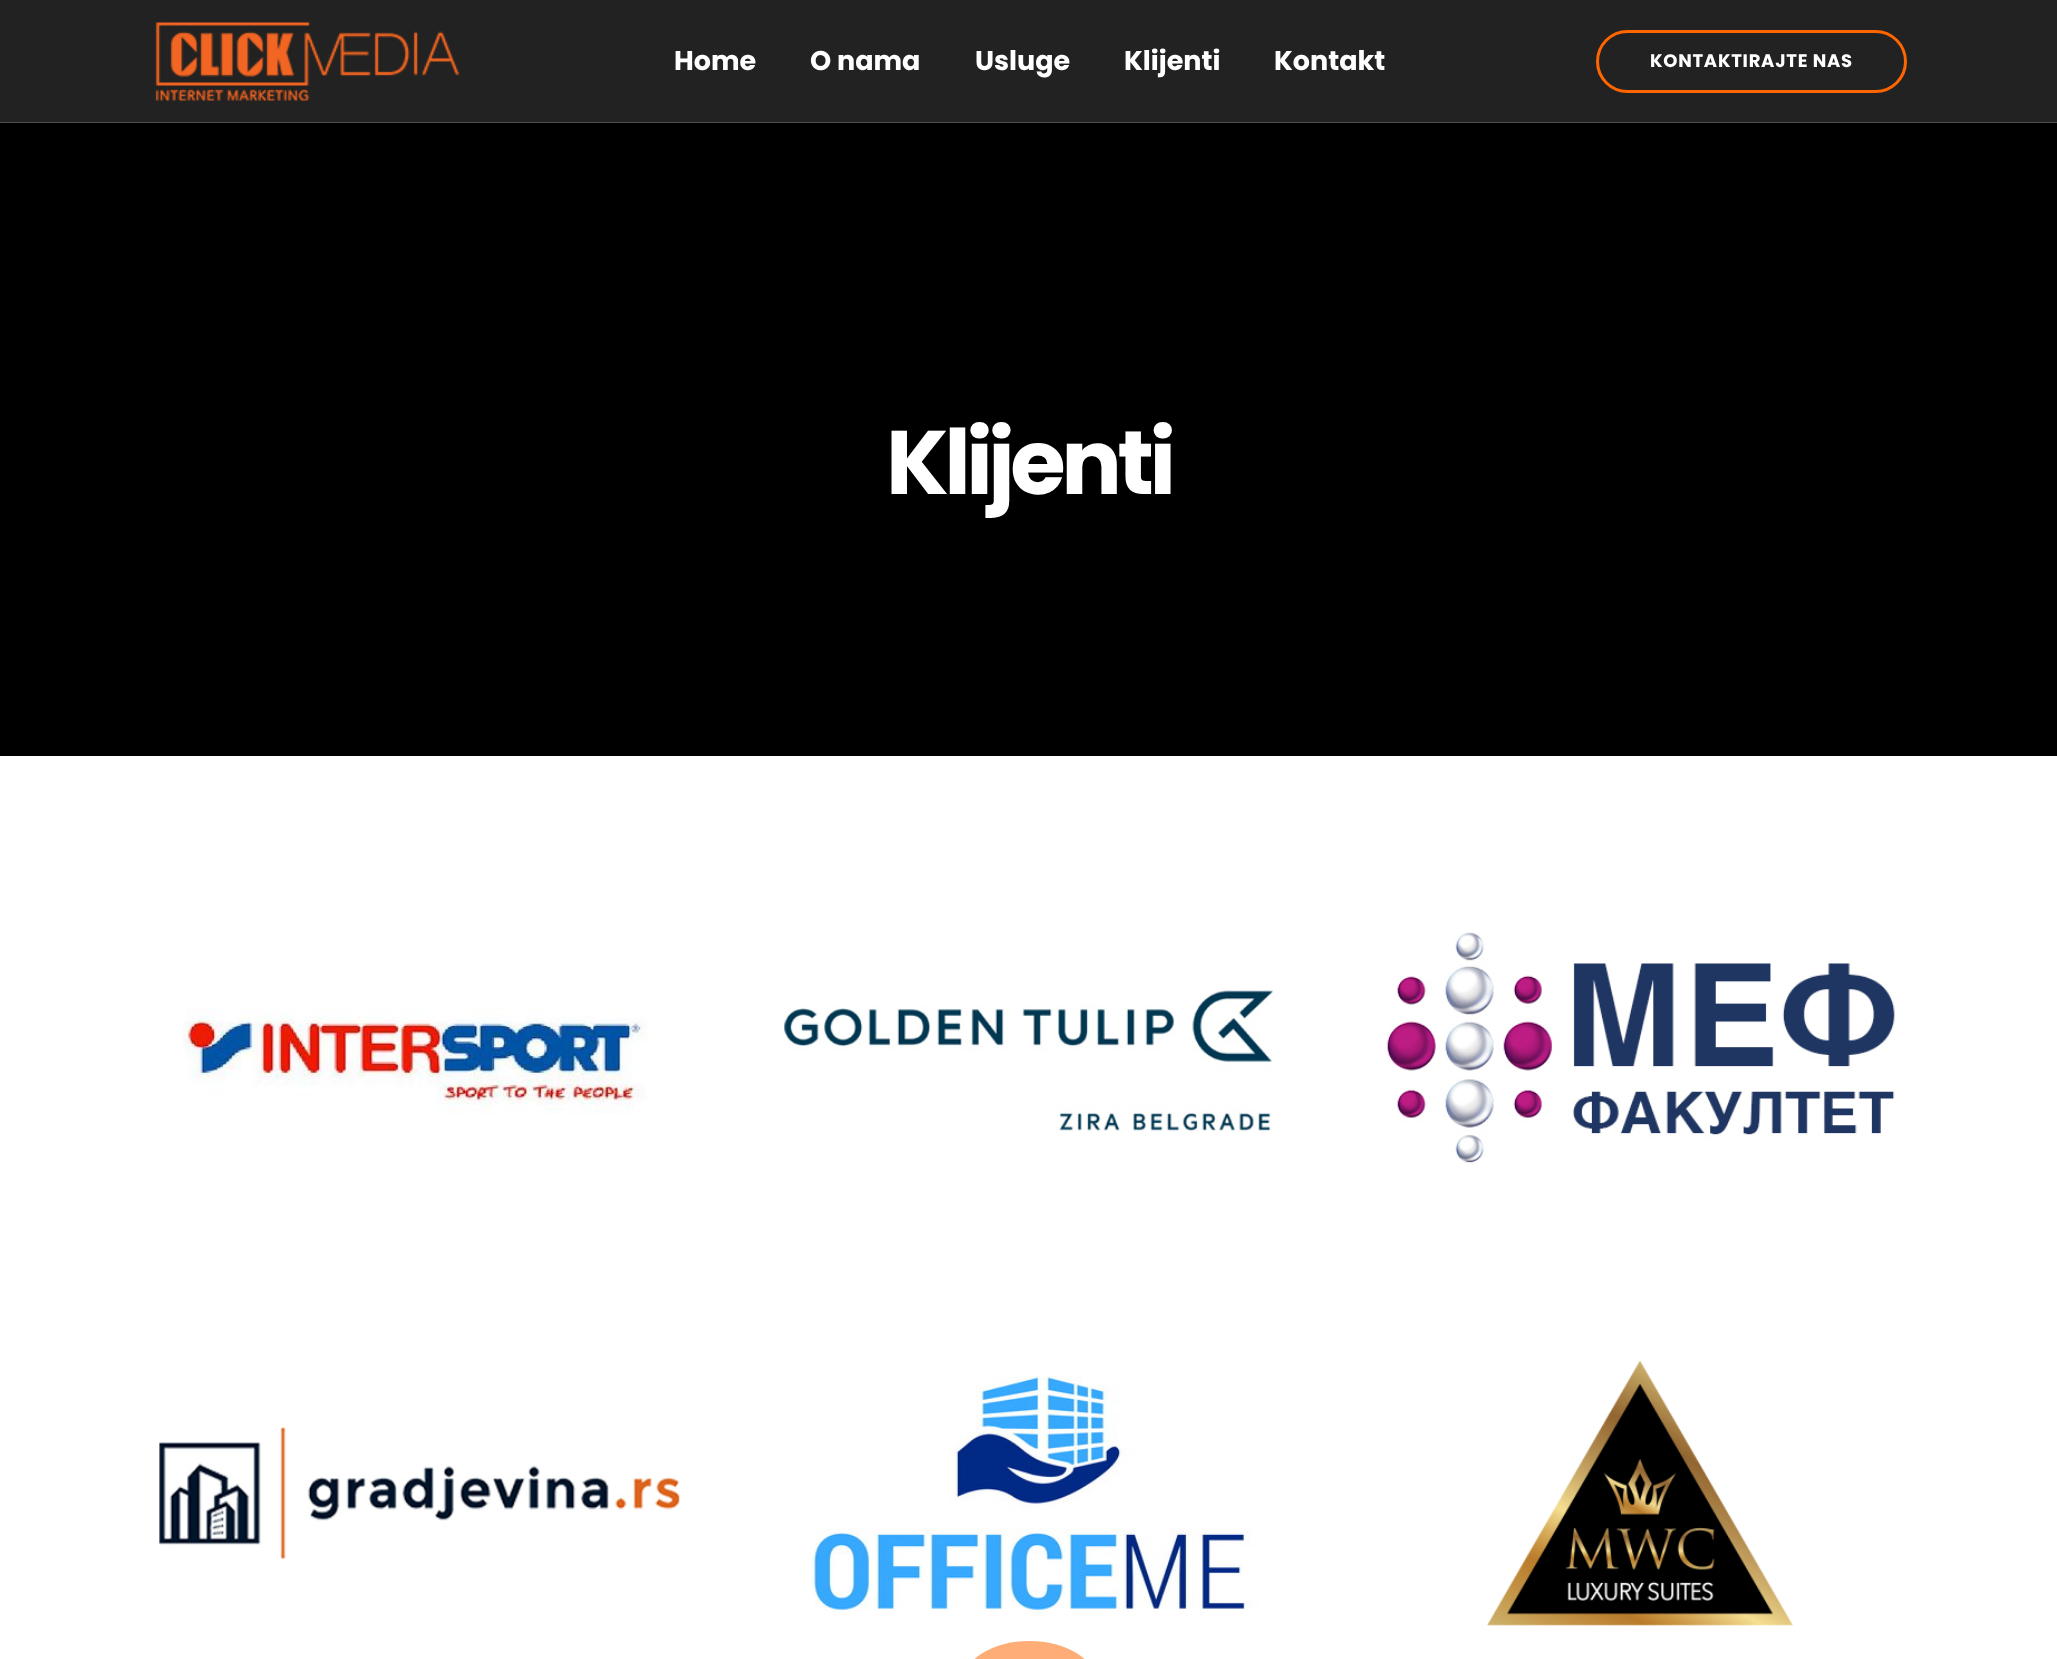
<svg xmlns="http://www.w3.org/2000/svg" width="2057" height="1659">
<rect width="100%" height="100%" fill="#fff"/>
<rect width="2057" height="122" fill="#222"/>
<rect y="122" width="2057" height="1" fill="#4e4e4e"/>
<image x="155" y="22" width="305" height="79" href="media/1.png"/>
<text x="674" y="70" style="font-family:Poppins;font-size:27px;font-weight:bold;fill:#fff">Home</text>
<text x="810" y="70" style="font-family:Poppins;font-size:27px;font-weight:bold;fill:#fff">O nama</text>
<text x="975" y="70" style="font-family:Poppins;font-size:27px;font-weight:bold;fill:#fff">Usluge</text>
<text x="1124" y="70" style="font-family:Poppins;font-size:27px;font-weight:bold;fill:#fff">Klijenti</text>
<text x="1274" y="70" style="font-family:Poppins;font-size:27px;font-weight:bold;fill:#fff">Kontakt</text>
<rect x="1597.5" y="31.5" width="308" height="60" rx="30" fill="none" stroke="#f60" stroke-width="3"/>
<text x="1650" y="67" style="font-family:Poppins;font-size:18px;font-weight:bold;letter-spacing:0.75px;fill:#fff">KONTAKTIRAJTE NAS</text>
<rect y="123" width="2057" height="633" fill="#000"/>
<text x="886" y="494" style="font-family:Poppins;font-size:90px;font-weight:bold;letter-spacing:-4.5px;fill:#fff">Klijenti</text>
<image x="183" y="1007" width="466" height="107" href="media/2.png"/>
<image x="784" y="990" width="489" height="142" href="media/3.png"/>
<image x="1386" y="932" width="509" height="231" href="media/4.png"/>
<image x="159" y="1427" width="521" height="132" href="media/5.png"/>
<image x="811" y="1376" width="448" height="240" href="media/6.png"/>
<image x="1487" y="1360" width="306" height="266" href="media/7.png"/>
<rect x="962" y="1641" width="135" height="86" rx="67.5" fill="#ffad77"/>
</svg>
